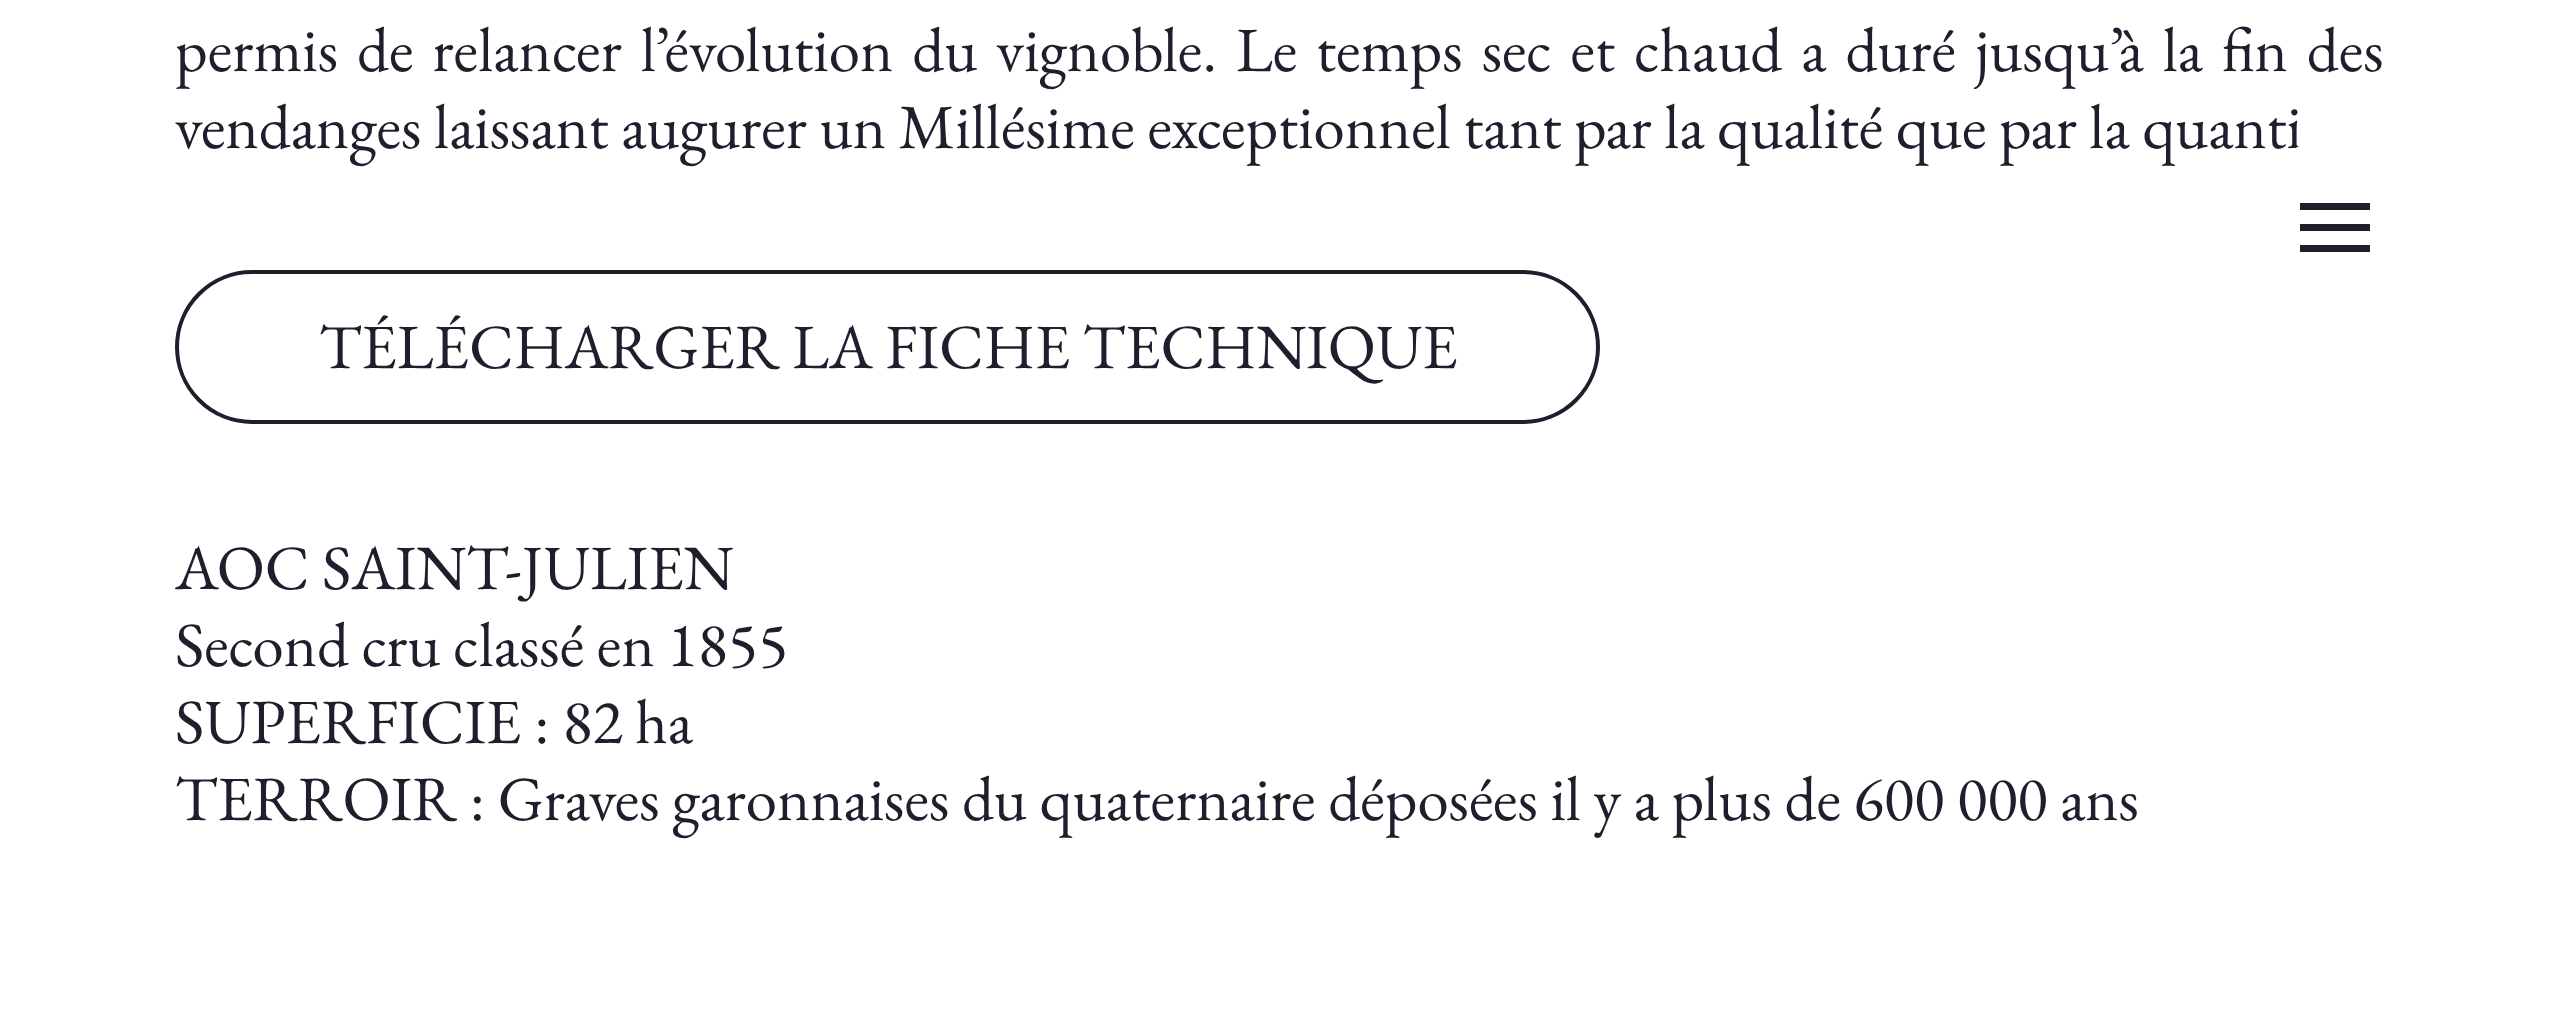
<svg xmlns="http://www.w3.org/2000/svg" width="2558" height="1010">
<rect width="100%" height="100%" fill="#fff"/>
<text x="175" y="71" word-spacing="6.4" style="font-family:EB Garamond;font-size:63px;fill:#1e1e2d">permis de relancer l’évolution du vignoble. Le temps sec et chaud a duré jusqu’à la fin des</text>
<text x="175" y="148" style="font-family:EB Garamond;font-size:63px;fill:#1e1e2d">vendanges laissant augurer un Millésime exceptionnel tant par la qualité que par la quanti</text>
<rect x="177" y="272" width="1421" height="150" rx="75" fill="none" stroke="#1e1e2d" stroke-width="4"/>
<text x="319" y="368" style="font-family:EB Garamond;font-size:63px;fill:#1e1e2d">TÉLÉCHARGER LA FICHE TECHNIQUE</text>
<text x="175" y="589" style="font-family:EB Garamond;font-size:63px;fill:#1e1e2d">AOC SAINT-JULIEN</text>
<text x="175" y="666" style="font-family:EB Garamond;font-size:63px;fill:#1e1e2d">Second cru classé en 1855</text>
<text x="175" y="743" style="font-family:EB Garamond;font-size:63px;fill:#1e1e2d">SUPERFICIE : 82 ha</text>
<text x="175" y="820" style="font-family:EB Garamond;font-size:63px;fill:#1e1e2d">TERROIR : Graves garonnaises du quaternaire déposées il y a plus de 600 000 ans</text>
<circle cx="2331.5" cy="227.5" r="87.5" fill="#fff"/>
<rect x="2300" y="224" width="70" height="7" fill="#1e1e2d"/>
<rect x="2300" y="203" width="70" height="7" fill="#1e1e2d"/>
<rect x="2300" y="245" width="70" height="7" fill="#1e1e2d"/>
</svg>
